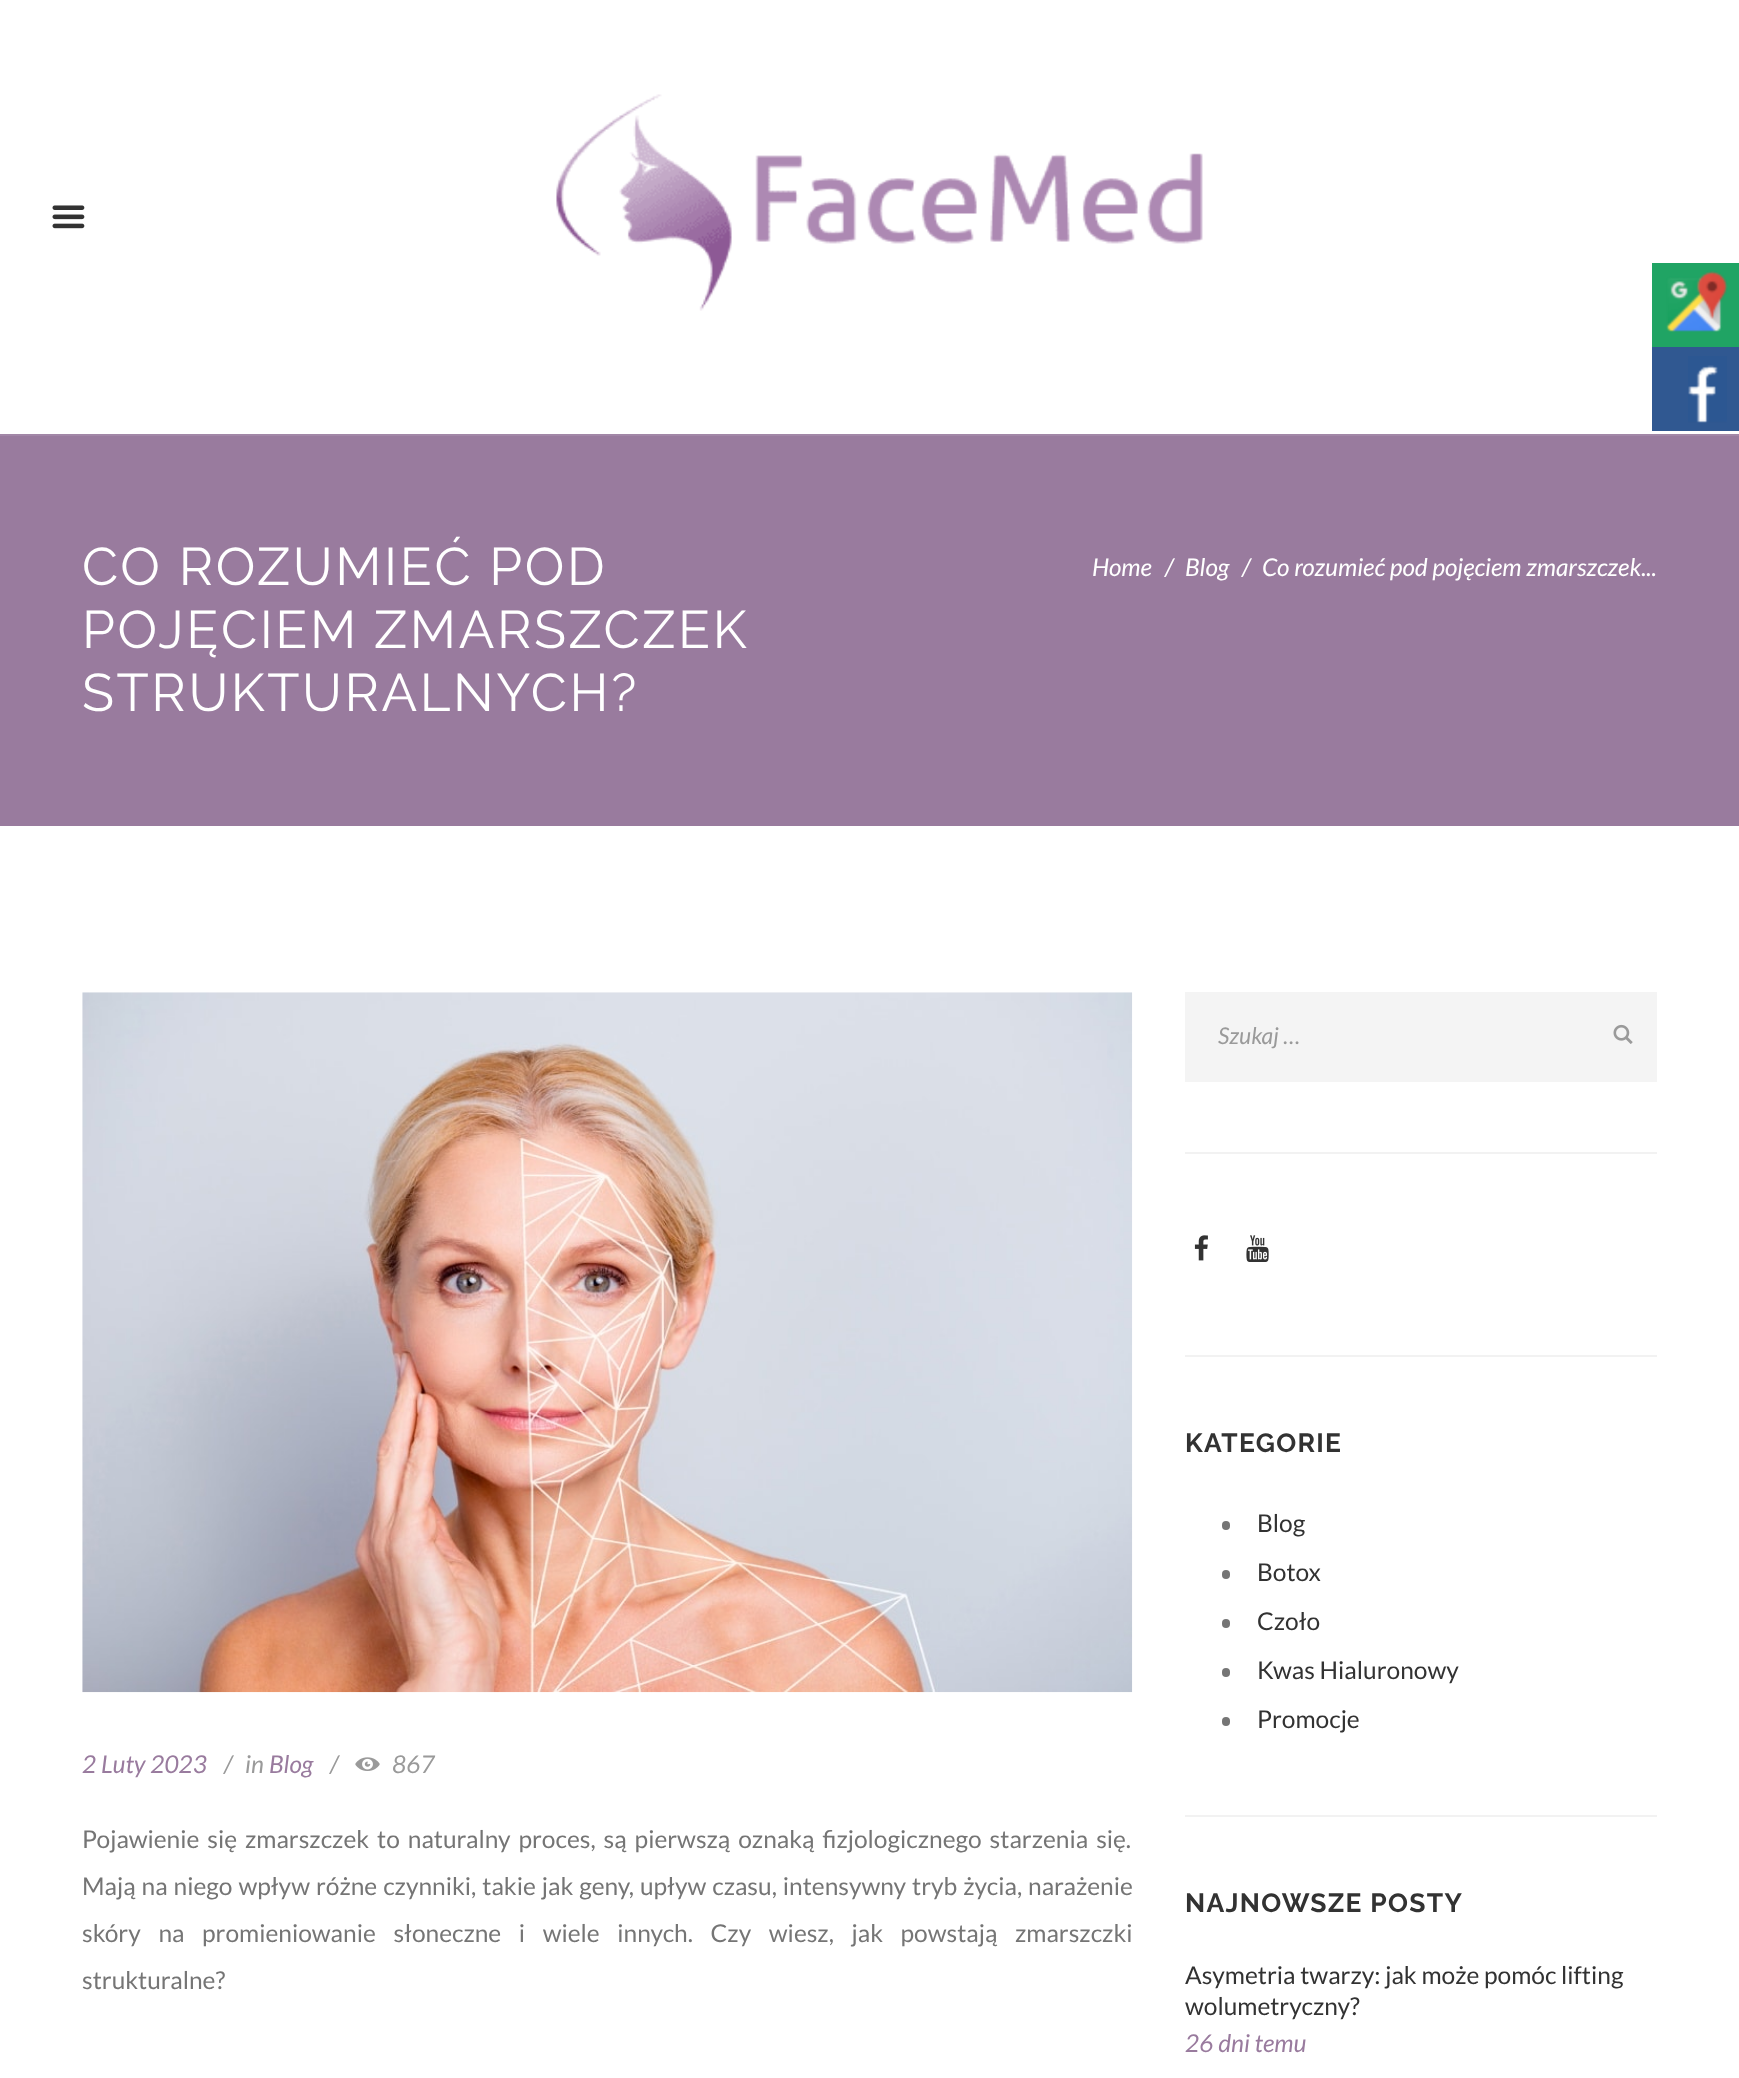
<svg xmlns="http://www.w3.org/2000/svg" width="1739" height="2078">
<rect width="100%" height="100%" fill="#fff"/>
<rect x="1652" y="263" width="87" height="84" fill="#20a464"/>
<image x="1666" y="271" width="62" height="61" href="media/1.png"/>
<rect x="1652" y="347" width="87" height="84" fill="#305891"/>
<image x="1688" y="356" width="39" height="67" href="media/2.png"/>
<image x="52" y="205" width="33" height="24" href="media/3.png"/>
<image x="556" y="94" width="647" height="217" href="media/4.png"/>
<rect y="436" width="1739" height="390" fill="#997b9e"/>
<rect y="434" width="1739" height="2" fill="#a287a7"/>
<text x="82" y="585" style="font-family:Raleway;font-size:52.75px;letter-spacing:2.6px;fill:#fff">CO ROZUMIEĆ POD</text>
<text x="82" y="648" word-spacing="-1" style="font-family:Raleway;font-size:52.75px;letter-spacing:2.6px;fill:#fff">POJĘCIEM ZMARSZCZEK</text>
<text x="82" y="711" style="font-family:Raleway;font-size:52.75px;letter-spacing:2.6px;fill:#fff">STRUKTURALNYCH?</text>
<text x="1092" y="576" style="font-family:Lato;font-size:24.5px;font-style:italic;fill:#fff">Home</text>
<text x="1165" y="576" style="font-family:Lato;font-size:24.5px;font-style:italic;fill:#fff">/</text>
<text x="1185" y="576" style="font-family:Lato;font-size:24.5px;font-style:italic;fill:#fff">Blog</text>
<text x="1242" y="576" style="font-family:Lato;font-size:24.5px;font-style:italic;fill:#fff">/</text>
<text x="1262" y="576" style="font-family:Lato;font-size:24.5px;font-style:italic;fill:#fff">Co rozumieć pod pojęciem zmarszczek...</text>
<image x="82" y="992" width="1051" height="701" href="media/5.png"/>
<text x="82" y="1773" style="font-family:Lato;font-size:24.5px;font-style:italic;fill:#997b9e">2 Luty 2023</text>
<text x="224" y="1773" style="font-family:Lato;font-size:24.5px;font-style:italic;fill:#9a9a9a">/</text>
<text x="245" y="1773" style="font-family:Lato;font-size:24.5px;font-style:italic;fill:#9a9a9a">in</text>
<text x="269" y="1773" style="font-family:Lato;font-size:24.5px;font-style:italic;fill:#997b9e">Blog</text>
<text x="330" y="1773" style="font-family:Lato;font-size:24.5px;font-style:italic;fill:#9a9a9a">/</text>
<image x="355" y="1757" width="25" height="14" href="media/6.png"/>
<text x="392" y="1773" style="font-family:Lato;font-size:24.5px;font-style:italic;fill:#9a9a9a">867</text>
<text x="82" y="1848" word-spacing="3.25" style="font-family:Lato;font-size:24.5px;fill:#757575">Pojawienie się zmarszczek to naturalny proces, są pierwszą oznaką fizjologicznego starzenia się.</text>
<text x="82" y="1895" word-spacing="1.25" style="font-family:Lato;font-size:24.5px;fill:#757575">Mają na niego wpływ różne czynniki, takie jak geny, upływ czasu, intensywny tryb życia, narażenie</text>
<text x="82" y="1942" word-spacing="12.9" style="font-family:Lato;font-size:24.5px;fill:#757575">skóry na promieniowanie słoneczne i wiele innych. Czy wiesz, jak powstają zmarszczki</text>
<text x="82" y="1989" style="font-family:Lato;font-size:24.5px;fill:#757575">strukturalne?</text>
<rect x="1185" y="992" width="472" height="90" fill="#f4f4f4"/>
<text x="1218" y="1044" style="font-family:Lato;font-size:23px;font-style:italic;fill:#9a9a9a">Szukaj …</text>
<image x="1613" y="1024" width="20" height="20" href="media/7.png"/>
<rect x="1185" y="1152" width="472" height="2" fill="#f2f2f2"/>
<image x="1194" y="1235" width="14" height="26" href="media/8.png"/>
<image x="1246" y="1235" width="23" height="27" href="media/9.png"/>
<rect x="1185" y="1355" width="472" height="2" fill="#f2f2f2"/>
<text x="1185" y="1452" style="font-family:Raleway;font-size:26.4px;font-weight:bold;letter-spacing:1.3px;fill:#323232">KATEGORIE</text>
<rect x="1222" y="1521" width="8" height="9" rx="4" fill="#757575"/>
<text x="1257" y="1532" style="font-family:Lato;font-size:24.5px;fill:#323232">Blog</text>
<rect x="1222" y="1570" width="8" height="9" rx="4" fill="#757575"/>
<text x="1257" y="1581" style="font-family:Lato;font-size:24.5px;fill:#323232">Botox</text>
<rect x="1222" y="1619" width="8" height="9" rx="4" fill="#757575"/>
<text x="1257" y="1630" style="font-family:Lato;font-size:24.5px;fill:#323232">Czoło</text>
<rect x="1222" y="1668" width="8" height="9" rx="4" fill="#757575"/>
<text x="1257" y="1679" style="font-family:Lato;font-size:24.5px;fill:#323232">Kwas Hialuronowy</text>
<rect x="1222" y="1717" width="8" height="9" rx="4" fill="#757575"/>
<text x="1257" y="1728" style="font-family:Lato;font-size:24.5px;fill:#323232">Promocje</text>
<rect x="1185" y="1815" width="472" height="2" fill="#f2f2f2"/>
<text x="1185" y="1912" style="font-family:Raleway;font-size:26.4px;font-weight:bold;letter-spacing:1.3px;fill:#323232">NAJNOWSZE POSTY</text>
<text x="1185" y="1984" style="font-family:Lato;font-size:24.5px;fill:#323232">Asymetria twarzy: jak może pomóc lifting</text>
<text x="1185" y="2015" style="font-family:Lato;font-size:24.5px;fill:#323232">wolumetryczny?</text>
<text x="1185" y="2052" style="font-family:Lato;font-size:24.5px;font-style:italic;fill:#997b9e">26 dni temu</text>
</svg>
